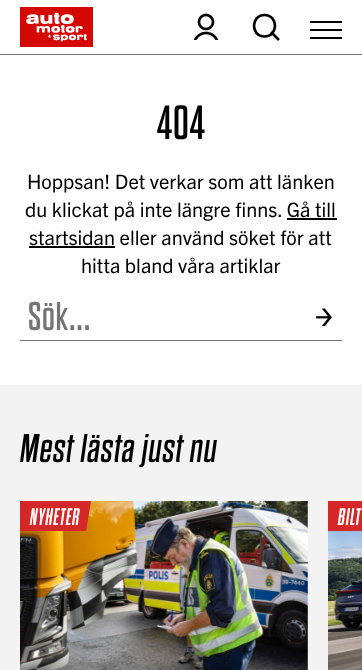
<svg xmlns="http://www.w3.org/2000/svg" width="362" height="670">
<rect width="100%" height="100%" fill="#fff"/>
<rect y="54" width="362" height="1" fill="#757575"/>
<image x="20" y="7" width="73" height="40" href="media/1.png"/>
<image x="193" y="13" width="26" height="27" href="media/2.png"/>
<path d="M264.5 36.5c14 0 14-21.5 0-21.5c-14 0-14 21.5 0 21.5z" fill="none" stroke="#000" stroke-width="2.7" stroke-linecap="round" stroke-linejoin="round"/>
<path d="M278 39l-6-6" fill="none" stroke="#000" stroke-width="2.7" stroke-linecap="square" stroke-linejoin="round"/>
<rect x="310" y="21" width="32" height="2" fill="#000"/>
<rect x="310" y="29" width="32" height="2" fill="#000"/>
<rect x="310" y="37" width="32" height="2" fill="#000"/>
<text x="157" y="139" style="font-family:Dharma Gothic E;font-size:48px;letter-spacing:1px;fill:#000">404</text>
<text x="27" y="189" style="font-family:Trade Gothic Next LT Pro;font-size:20px;fill:#000">Hoppsan! Det verkar som att länken</text>
<text x="25" y="217" style="font-family:Trade Gothic Next LT Pro;font-size:20px;fill:#000">du klickat på inte längre finns. Gå till</text>
<text x="29" y="245" style="font-family:Trade Gothic Next LT Pro;font-size:20px;fill:#000">startsidan eller använd söket för att</text>
<rect x="287" y="218" width="50" height="2" fill="#000"/>
<rect x="29" y="246" width="86" height="2" fill="#000"/>
<text x="81" y="273" style="font-family:Trade Gothic Next LT Pro;font-size:20px;fill:#000">hitta bland våra artiklar</text>
<rect x="20" y="340" width="322" height="1" fill="#757575"/>
<text x="28" y="330" style="font-family:Dharma Gothic E;font-size:40px;letter-spacing:0.75px;fill:#757575">Sök...</text>
<image x="316" y="308" width="16" height="19" href="media/3.png"/>
<rect y="385" width="362" height="285" fill="#f3f3f3"/>
<text x="20" y="462" style="font-family:Dharma Gothic E;font-size:40px;font-style:italic;letter-spacing:0.75px;fill:#000">Mest lästa just nu</text>
<image x="20" y="501" width="288" height="169" href="media/4.png"/>
<path d="M20 501v30h66l5-30z" fill="#d32728"/>
<text x="30" y="525" style="font-family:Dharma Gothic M;font-size:24px;font-weight:bold;font-style:italic;letter-spacing:1px;fill:#fff">NYHETER</text>
<path d="M328 501v30h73l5-30z" fill="#d32728"/>
<text x="338" y="525" style="font-family:Dharma Gothic M;font-size:24px;font-weight:bold;font-style:italic;letter-spacing:1px;fill:#fff">BILT</text>
<image x="328" y="531" width="34" height="139" href="media/5.png"/>
</svg>
